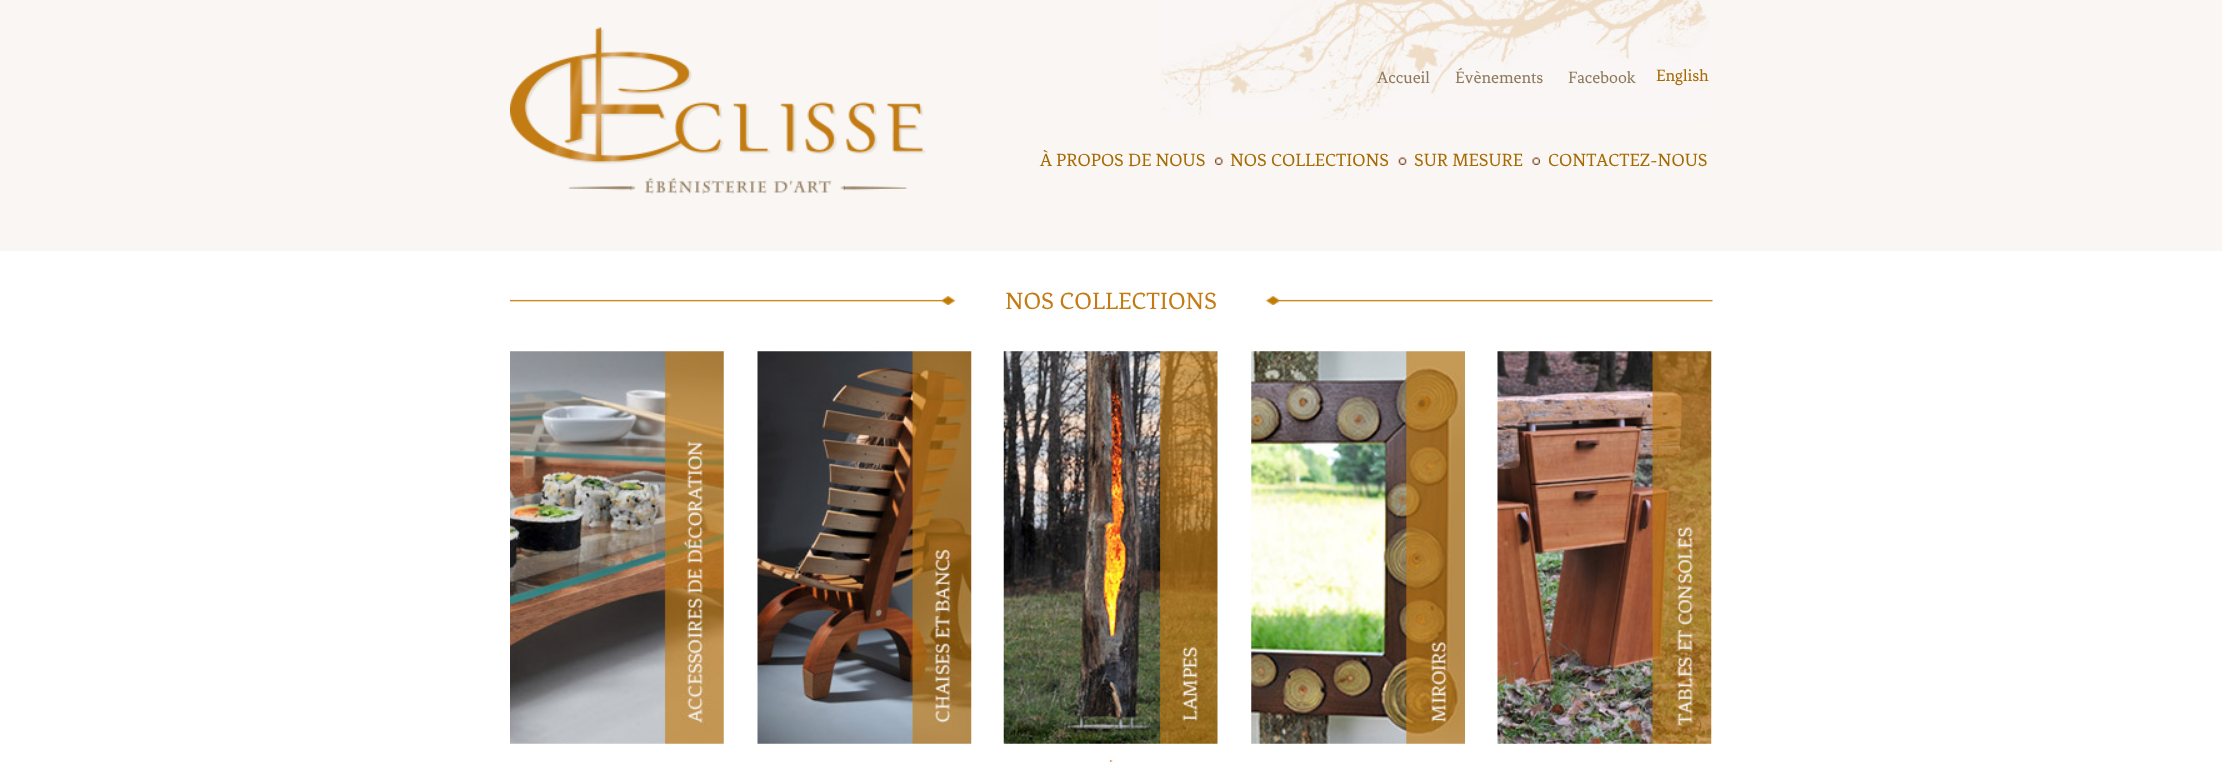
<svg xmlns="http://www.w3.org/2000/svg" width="2222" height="762">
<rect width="100%" height="100%" fill="#fff"/>
<rect width="2222" height="251" fill="#f9f6f4"/>
<image x="510" y="27" width="415" height="167" href="media/1.png"/>
<image x="1160" y="0" width="550" height="120" href="media/2.png"/>
<text x="1377" y="83" style="font-family:Fenix;font-size:17.5px;fill:#8d7959">Accueil</text>
<text x="1455" y="83" style="font-family:Fenix;font-size:17.5px;fill:#8d7959">Évènements</text>
<text x="1568" y="83" style="font-family:Fenix;font-size:17.5px;fill:#8d7959">Facebook</text>
<text x="1656" y="81" style="font-family:Fenix;font-size:17.5px;fill:#a56a03">English</text>
<text x="1040" y="166" style="font-family:Fenix;font-size:18.75px;fill:#a56a03">À PROPOS DE NOUS</text>
<image x="1215" y="157" width="8" height="8" href="media/3.png"/>
<text x="1230" y="166" style="font-family:Fenix;font-size:18.75px;fill:#a56a03">NOS COLLECTIONS</text>
<image x="1398" y="157" width="9" height="8" href="media/4.png"/>
<text x="1414" y="166" style="font-family:Fenix;font-size:18.75px;fill:#a56a03">SUR MESURE</text>
<image x="1532" y="157" width="8" height="8" href="media/5.png"/>
<text x="1548" y="166" style="font-family:Fenix;font-size:18.75px;fill:#a56a03">CONTACTEZ-NOUS</text>
<image x="510" y="296" width="1203" height="9" href="media/6.png"/>
<text x="1005" y="309" style="font-family:Fenix;font-size:25px;fill:#c37c13">NOS COLLECTIONS</text>
<image x="510" y="351" width="214" height="393" href="media/7.png"/>
<image x="757" y="351" width="215" height="393" href="media/8.png"/>
<image x="1003" y="351" width="215" height="393" href="media/9.png"/>
<image x="1251" y="351" width="214" height="393" href="media/10.png"/>
<image x="1497" y="351" width="215" height="393" href="media/11.png"/>
<image x="1109" y="760" width="4" height="2" href="media/12.png"/>
</svg>
